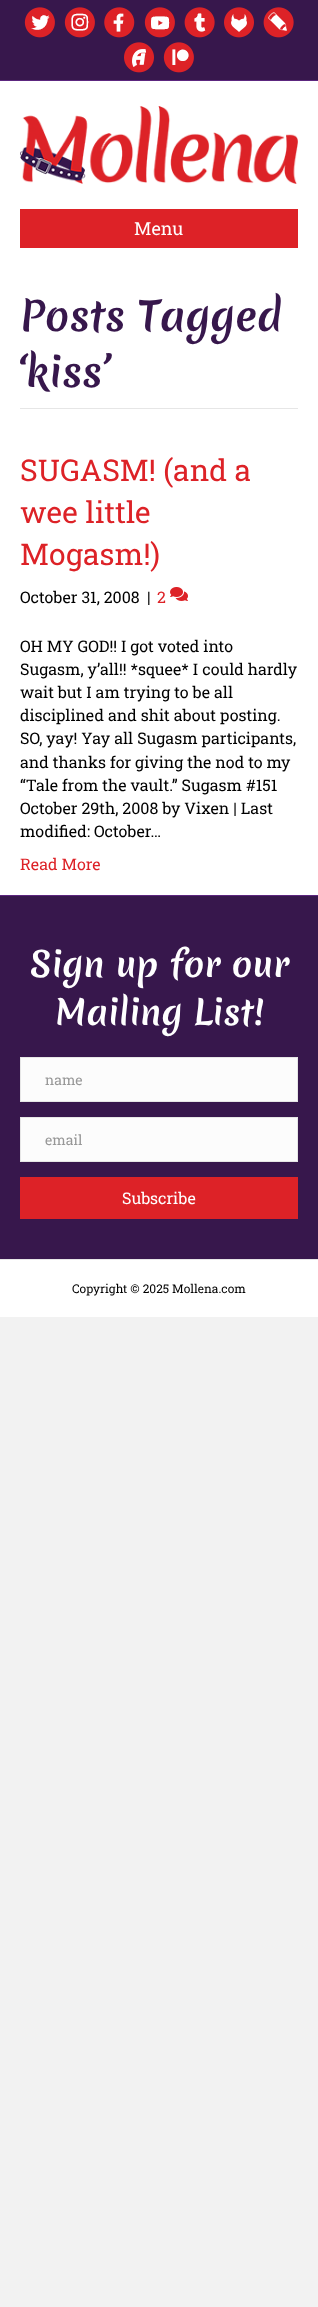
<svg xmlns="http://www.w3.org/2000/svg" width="318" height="2307">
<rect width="100%" height="100%" fill="#f2f2f2"/>
<rect width="318" height="80" fill="#37174c"/>
<rect y="80" width="318" height="1" fill="#5c267f"/>
<image x="24" y="7" width="31" height="31" href="media/1.png"/>
<image x="64" y="7" width="31" height="31" href="media/2.png"/>
<image x="104" y="7" width="31" height="31" href="media/3.png"/>
<image x="144" y="7" width="31" height="31" href="media/4.png"/>
<image x="184" y="7" width="31" height="31" href="media/5.png"/>
<image x="224" y="7" width="30" height="31" href="media/6.png"/>
<image x="263" y="7" width="31" height="31" href="media/7.png"/>
<image x="124" y="42" width="30" height="31" href="media/8.png"/>
<image x="163" y="42" width="31" height="31" href="media/9.png"/>
<rect y="81" width="318" height="814" fill="#fff"/>
<image x="20" y="106" width="278" height="78" href="media/10.png"/>
<rect x="20" y="209" width="278" height="39" fill="#dd2227"/>
<text x="134" y="235" style="font-family:Roboto Slab;font-size:18px;fill:#fff">Menu</text>
<rect x="20" y="408" width="278" height="1" fill="#e6e6e6"/>
<text x="20" y="331" style="font-family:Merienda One;font-size:40px;fill:#37174c">Posts Tagged</text>
<text x="20" y="387" style="font-family:Merienda One;font-size:40px;fill:#37174c">‘kiss’</text>
<text x="20" y="481" style="font-family:Roboto Slab;font-size:30px;fill:#dd2227">SUGASM! (and a</text>
<text x="20" y="523" style="font-family:Roboto Slab;font-size:30px;fill:#dd2227">wee little</text>
<text x="20" y="565" style="font-family:Roboto Slab;font-size:30px;fill:#dd2227">Mogasm!)</text>
<text x="20" y="603" style="font-family:Roboto Slab;font-size:16px;fill:#000">October 31, 2008</text>
<text x="147" y="603" style="font-family:Roboto Slab;font-size:16px;fill:#000">|</text>
<text x="157" y="603" style="font-family:Roboto Slab;font-size:16px;fill:#dd2227">2</text>
<image x="170" y="587" width="18" height="14" href="media/11.png"/>
<text x="20" y="652" style="font-family:Roboto Slab;font-size:16px;fill:#000">OH MY GOD!! I got voted into</text>
<text x="20" y="675" style="font-family:Roboto Slab;font-size:16px;fill:#000">Sugasm, y’all!! *squee* I could hardly</text>
<text x="20" y="698" style="font-family:Roboto Slab;font-size:16px;fill:#000">wait but I am trying to be all</text>
<text x="20" y="721" style="font-family:Roboto Slab;font-size:16px;fill:#000">disciplined and shit about posting.</text>
<text x="20" y="744" style="font-family:Roboto Slab;font-size:16px;fill:#000">SO, yay! Yay all Sugasm participants,</text>
<text x="20" y="768" style="font-family:Roboto Slab;font-size:16px;fill:#000">and thanks for giving the nod to my</text>
<text x="20" y="791" style="font-family:Roboto Slab;font-size:16px;fill:#000">“Tale from the vault.” Sugasm #151</text>
<text x="20" y="814" style="font-family:Roboto Slab;font-size:16px;fill:#000">October 29th, 2008 by Vixen | Last</text>
<text x="20" y="837" style="font-family:Roboto Slab;font-size:16px;fill:#000">modified: October…</text>
<text x="20" y="870" style="font-family:Roboto Slab;font-size:16px;fill:#dd2227">Read More</text>
<rect y="896" width="318" height="363" fill="#37174c"/>
<rect y="895" width="318" height="1" fill="#5c267f"/>
<text x="30" y="977" style="font-family:Merienda One;font-size:34px;fill:#fff">Sign up for our</text>
<text x="55" y="1025" style="font-family:Merienda One;font-size:34px;fill:#fff">Mailing List!</text>
<rect x="20.5" y="1057.5" width="277" height="44" fill="#fcfcfc" stroke="#e6e6e6"/>
<text x="45" y="1085" style="font-family:Roboto Slab;font-size:14px;fill:#979797">name</text>
<rect x="20.5" y="1117.5" width="277" height="44" fill="#fcfcfc" stroke="#e6e6e6"/>
<text x="45" y="1145" style="font-family:Roboto Slab;font-size:14px;fill:#979797">email</text>
<rect x="20" y="1177" width="278" height="42" fill="#dd2227"/>
<text x="122" y="1204" style="font-family:Roboto Slab;font-size:16px;fill:#fff">Subscribe</text>
<rect y="1260" width="318" height="57" fill="#fff"/>
<rect y="1259" width="318" height="1" fill="#e6e6e6"/>
<text x="72" y="1293" style="font-family:Roboto Slab;font-size:12px;fill:#000">Copyright © 2025 Mollena.com</text>
</svg>
